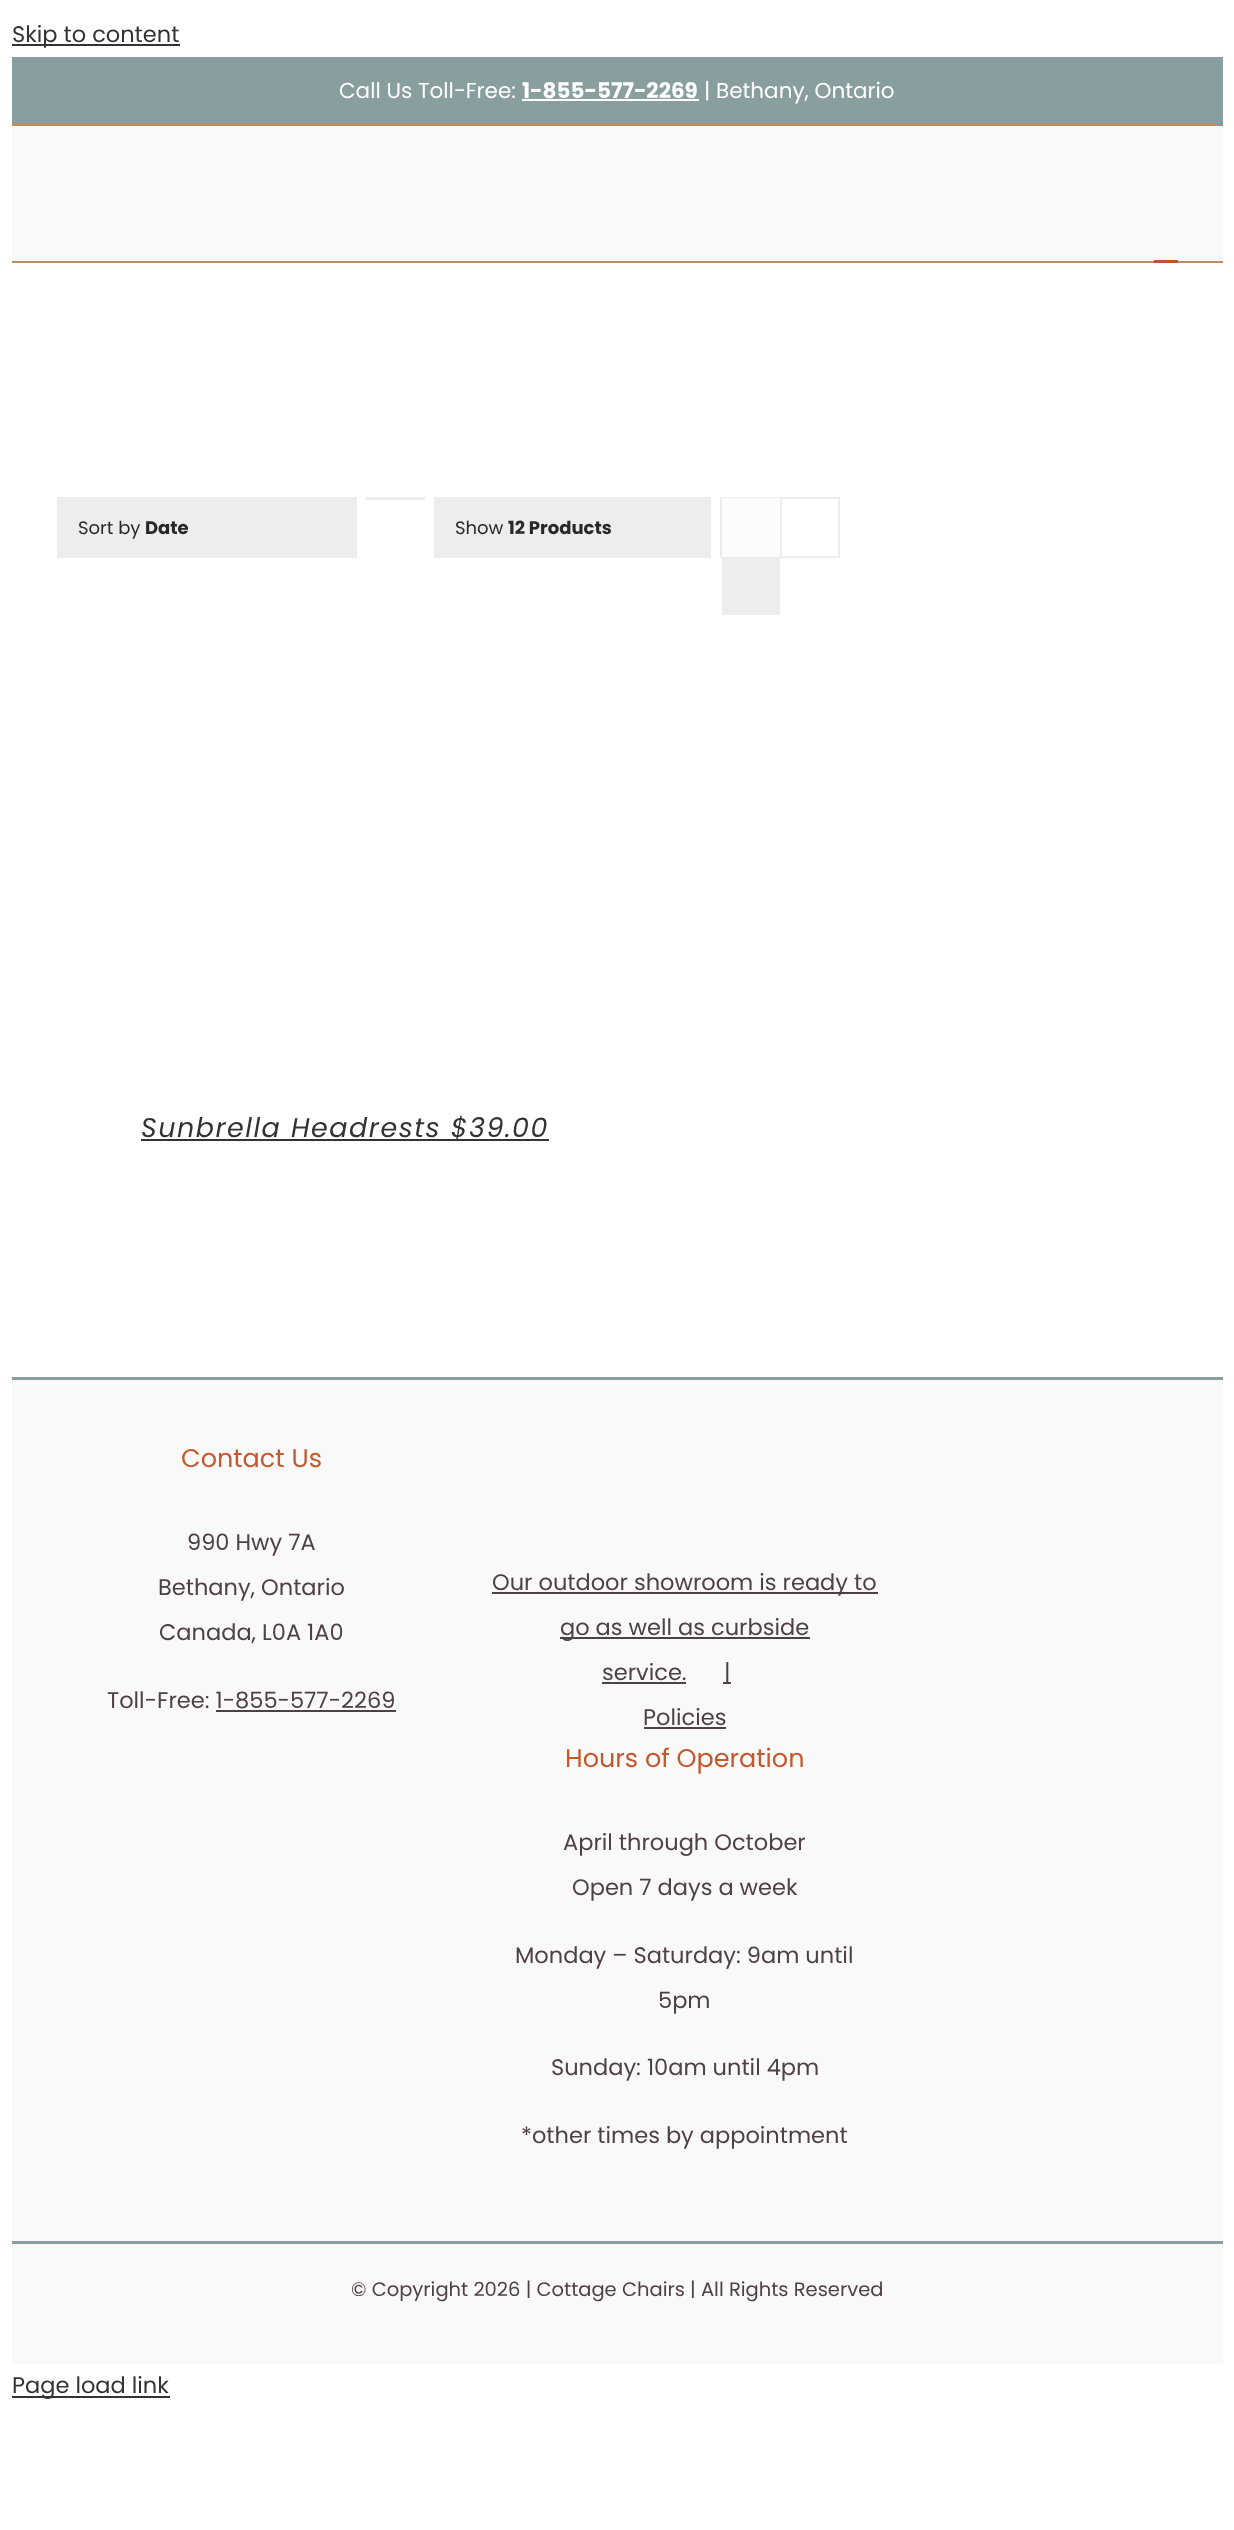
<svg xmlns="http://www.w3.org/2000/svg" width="1234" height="2530">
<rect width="100%" height="100%" fill="#fff"/>
<rect x="12" y="44" width="168" height="2" fill="#333"/>
<text x="12" y="42" style="font-family:Poppins;font-size:22.5px;fill:#333">Skip to content</text>
<rect x="12" y="57" width="1211" height="66" fill="#899e9f"/>
<rect x="12" y="123" width="1211" height="3" fill="#b88d68"/>
<text x="339" y="98" style="font-family:Poppins;font-size:21.5px;fill:#fff">Call Us Toll-Free:</text>
<text x="522" y="98" style="font-family:Poppins;font-size:21.5px;font-weight:bold;fill:#fff">1-855-577-2269</text>
<rect x="522" y="99" width="177" height="2" fill="#fff"/>
<text x="704" y="98" style="font-family:Poppins;font-size:21.5px;fill:#fff">| Bethany, Ontario</text>
<rect x="12" y="126" width="1211" height="135" fill="#faf9f9"/>
<rect x="12" y="261" width="1211" height="2" fill="#b88d68"/>
<rect x="1154" y="260" width="24" height="3" fill="#b85433"/>
<rect x="366" y="497" width="59" height="3" fill="#ededed"/>
<rect x="57" y="497" width="300" height="61" fill="#ededed"/>
<text x="78" y="534" style="font-family:Poppins;font-size:18px;fill:#282828">Sort by</text>
<text x="145" y="534" style="font-family:Poppins;font-size:18px;font-weight:bold;fill:#282828">Date</text>
<rect x="434" y="497" width="277" height="61" fill="#ededed"/>
<text x="455" y="534" style="font-family:Poppins;font-size:18px;fill:#282828">Show</text>
<text x="508" y="534" style="font-family:Poppins;font-size:18px;font-weight:bold;fill:#282828">12 Products</text>
<rect x="721" y="498" width="118" height="59" fill="none" stroke="#ededed" stroke-width="2"/>
<rect x="722" y="498" width="58" height="59" fill="#fcfcfc"/>
<rect x="780" y="498" width="2" height="59" fill="#ededed"/>
<rect x="722" y="558" width="58" height="57" fill="#ededed"/>
<rect x="141" y="1139" width="408" height="2" fill="#333"/>
<text x="141" y="1137" style="font-family:Poppins;font-size:27px;font-style:italic;letter-spacing:1.5px;fill:#333">Sunbrella Headrests $39.00</text>
<rect x="12" y="1380" width="1211" height="861" fill="#faf9f9"/>
<rect x="12" y="1377" width="1211" height="3" fill="#899e9f"/>
<text x="181" y="1467" style="font-family:Poppins;font-size:25.5px;fill:#c3592e">Contact Us</text>
<text x="187" y="1550" style="font-family:Poppins;font-size:22.5px;fill:#4e4142">990 Hwy 7A</text>
<text x="158" y="1595" style="font-family:Poppins;font-size:22.5px;fill:#4e4142">Bethany, Ontario</text>
<text x="159" y="1640" style="font-family:Poppins;font-size:22.5px;fill:#4e4142">Canada, L0A 1A0</text>
<text x="107" y="1708" style="font-family:Poppins;font-size:22.5px;fill:#4e4142">Toll-Free: 1-855-577-2269</text>
<rect x="216" y="1710" width="180" height="2" fill="#4e4142"/>
<rect x="492" y="1592" width="386" height="2" fill="#4e4142"/>
<text x="492" y="1590" style="font-family:Poppins;font-size:22.5px;fill:#4e4142">Our outdoor showroom is ready to</text>
<rect x="560" y="1637" width="250" height="2" fill="#4e4142"/>
<text x="560" y="1635" style="font-family:Poppins;font-size:22.5px;fill:#4e4142">go as well as curbside</text>
<text x="602" y="1680" style="font-family:Poppins;font-size:22.5px;fill:#4e4142">service.</text>
<rect x="602" y="1682" width="84" height="2" fill="#4e4142"/>
<rect x="723" y="1682" width="8" height="2" fill="#4e4142"/>
<text x="724" y="1680" style="font-family:Poppins;font-size:22.5px;fill:#4e4142">|</text>
<text x="643" y="1725" style="font-family:Poppins;font-size:22.5px;fill:#4e4142">Policies</text>
<rect x="644" y="1727" width="82" height="2" fill="#4e4142"/>
<text x="565" y="1767" style="font-family:Poppins;font-size:25.5px;fill:#c3592e">Hours of Operation</text>
<text x="563" y="1850" style="font-family:Poppins;font-size:22.5px;fill:#4e4142">April through October</text>
<text x="572" y="1895" style="font-family:Poppins;font-size:22.5px;fill:#4e4142">Open 7 days a week</text>
<text x="515" y="1963" style="font-family:Poppins;font-size:22.5px;fill:#4e4142">Monday – Saturday: 9am until</text>
<text x="658" y="2008" style="font-family:Poppins;font-size:22.5px;fill:#4e4142">5pm</text>
<text x="551" y="2075" style="font-family:Poppins;font-size:22.5px;fill:#4e4142">Sunday: 10am until 4pm</text>
<text x="521" y="2143" style="font-family:Poppins;font-size:22.5px;fill:#4e4142">*other times by appointment</text>
<rect x="12" y="2244" width="1211" height="120" fill="#faf9f9"/>
<rect x="12" y="2241" width="1211" height="3" fill="#899e9f"/>
<text x="351" y="2296" style="font-family:Poppins;font-size:19.5px;fill:#4e4142">© Copyright 2026 | Cottage Chairs | All Rights Reserved</text>
<rect x="12" y="2396" width="158" height="2" fill="#333"/>
<text x="12" y="2393" style="font-family:Poppins;font-size:22.5px;fill:#333">Page load link</text>
</svg>
